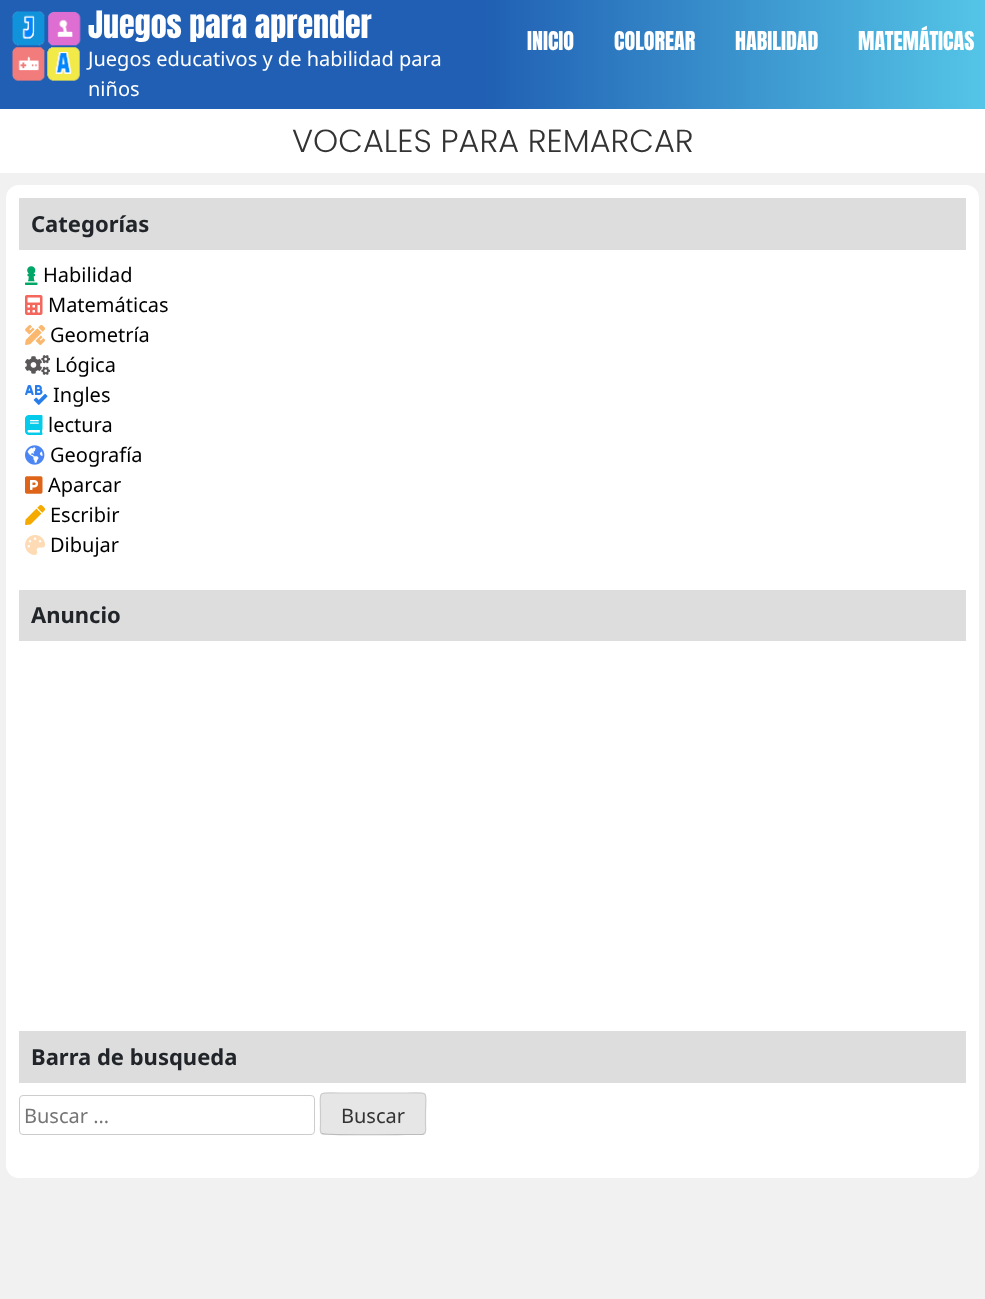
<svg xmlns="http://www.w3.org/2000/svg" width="985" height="1299">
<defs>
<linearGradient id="g1" gradientUnits="userSpaceOnUse" x1="0" y1="54" x2="985" y2="54"><stop offset="0.49" stop-color="#205fb3"/><stop offset="1" stop-color="#54c5e7"/></linearGradient>
</defs>
<rect width="100%" height="100%" fill="#f1f1f1"/>
<rect width="985" height="109" fill="url(#g1)"/>
<rect y="109" width="985" height="64" fill="#fff"/>
<image x="11" y="11" width="70" height="70" href="media/1.png"/>
<text x="88" y="38" style="font-family:Anton;font-size:32px;fill:#fff">Juegos para aprender</text>
<text x="88" y="66" style="font-family:Noto Sans;font-size:20px;fill:#fff">Juegos educativos y de habilidad para</text>
<text x="88" y="96" style="font-family:Noto Sans;font-size:20px;fill:#fff">niños</text>
<text x="527" y="50" style="font-family:Anton;font-size:22px;fill:#fff">INICIO</text>
<text x="614" y="50" style="font-family:Anton;font-size:22px;fill:#fff">COLOREAR</text>
<text x="735" y="50" style="font-family:Anton;font-size:22px;fill:#fff">HABILIDAD</text>
<text x="858" y="50" style="font-family:Anton;font-size:22px;fill:#fff">MATEMÁTICAS</text>
<text x="292" y="152" style="font-family:Poppins;font-size:32px;font-weight:300;fill:#333">VOCALES PARA REMARCAR</text>
<rect x="6" y="185" width="973" height="993" rx="13" fill="#fff"/>
<rect x="19" y="198" width="947" height="52" fill="#ddd"/>
<text x="31" y="232" style="font-family:Noto Sans;font-size:22px;font-weight:bold;fill:#212529">Categorías</text>
<image x="25" y="266" width="13" height="19" href="media/2.png"/>
<text x="43" y="282" style="font-family:Noto Sans;font-size:20px;fill:#000">Habilidad</text>
<image x="25" y="295" width="18" height="20" href="media/3.png"/>
<text x="48" y="312" style="font-family:Noto Sans;font-size:20px;fill:#000">Matemáticas</text>
<image x="25" y="325" width="20" height="20" href="media/4.png"/>
<text x="50" y="342" style="font-family:Noto Sans;font-size:20px;fill:#000">Geometría</text>
<image x="25" y="355" width="25" height="20" href="media/5.png"/>
<text x="55" y="372" style="font-family:Noto Sans;font-size:20px;fill:#000">Lógica</text>
<image x="25" y="385" width="23" height="20" href="media/6.png"/>
<text x="53" y="402" style="font-family:Noto Sans;font-size:20px;fill:#000">Ingles</text>
<image x="25" y="415" width="18" height="20" href="media/7.png"/>
<text x="48" y="432" style="font-family:Noto Sans;font-size:20px;fill:#000">lectura</text>
<image x="25" y="445" width="20" height="20" href="media/8.png"/>
<text x="50" y="462" style="font-family:Noto Sans;font-size:20px;fill:#000">Geografía</text>
<image x="25" y="476" width="18" height="18" href="media/9.png"/>
<text x="48" y="492" style="font-family:Noto Sans;font-size:20px;fill:#000">Aparcar</text>
<image x="25" y="505" width="20" height="20" href="media/10.png"/>
<text x="50" y="522" style="font-family:Noto Sans;font-size:20px;fill:#000">Escribir</text>
<image x="25" y="535" width="20" height="20" href="media/11.png"/>
<text x="50" y="552" style="font-family:Noto Sans;font-size:20px;fill:#000">Dibujar</text>
<rect x="19" y="590" width="947" height="51" fill="#ddd"/>
<text x="31" y="623" style="font-family:Noto Sans;font-size:22px;font-weight:bold;fill:#212529">Anuncio</text>
<rect x="19" y="1031" width="947" height="52" fill="#ddd"/>
<text x="31" y="1065" style="font-family:Noto Sans;font-size:22px;font-weight:bold;fill:#212529">Barra de busqueda</text>
<rect x="19.5" y="1095.5" width="295" height="39" rx="3.5" fill="none" stroke="#ccc"/>
<text x="24" y="1123" style="font-family:Noto Sans;font-size:20px;fill:#757575">Buscar …</text>
<rect x="320" y="1093" width="106" height="42" rx="4" fill="#e6e6e6"/>
<path d="M424.5 1133.5l-2 1h-16.5c-9 0-82 1-84-1h-.5" fill="none" stroke="#bbb" stroke-width="1.2"/>
<path d="M321.5 1133.5c-2-2-1-6.5-1-8v-11.5c0-24.5-4.5-21 19.5-21h66c24.5 0 19.5-3.5 19.5 21v11.5c0 1.5 1 6-1 8" fill="none" stroke="#ccc" stroke-width="1.2"/>
<text x="341" y="1123" style="font-family:Noto Sans;font-size:20px;fill:#333">Buscar</text>
</svg>
